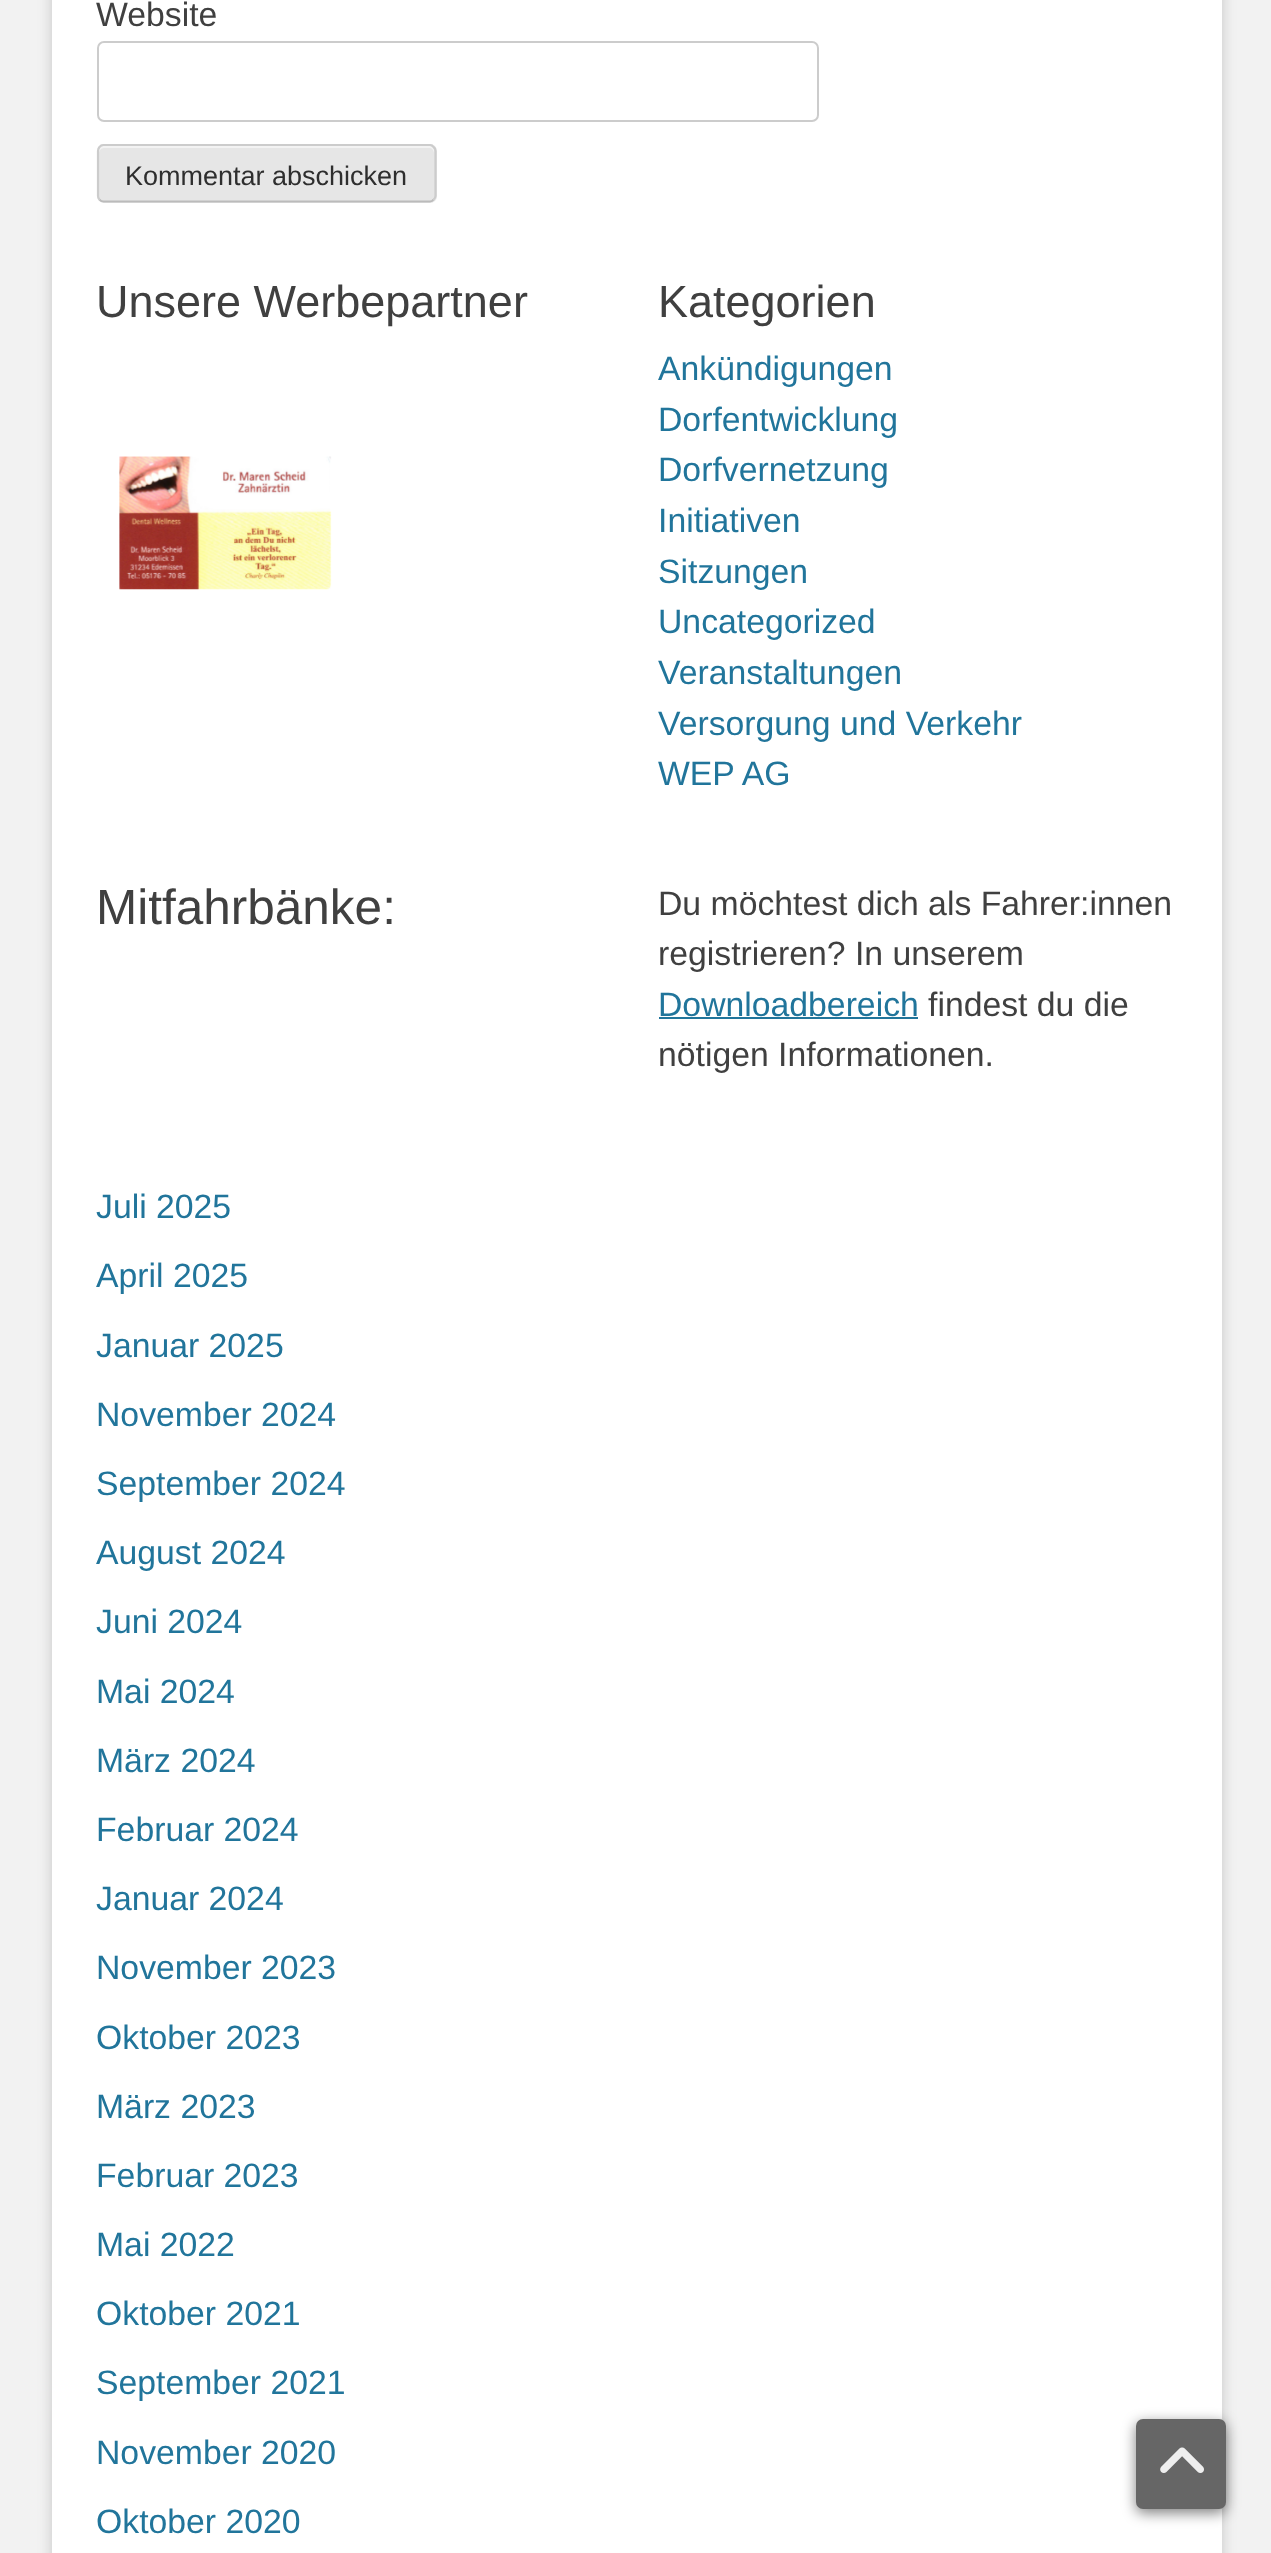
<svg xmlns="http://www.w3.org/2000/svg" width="1271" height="2553">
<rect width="100%" height="100%" fill="#f2f2f2"/>
<rect x="52" y="-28" width="1170" height="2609" rx="7" fill="#6464644d" filter="blur(7px)"/>
<rect x="52" width="1170" height="2553" fill="#fff"/>
<text x="96" y="26" style="font-family:Liberation Sans;font-size:33.75px;fill:#404040">Website</text>
<rect x="98" y="42" width="720" height="79" rx="6" fill="none" stroke="#ccc" stroke-width="2"/>
<rect x="97" y="144" width="340" height="59" rx="7" fill="#e6e6e6"/>
<path d="M104 148h326c2 0 4 3 4 5v-2c0-3-2-5-5-5h-325c-3 0-5 2-5 5v2c0-2 2-5 5-5z" fill="#f3f3f3"/>
<path d="M433.5 199.5c-1 1.5-2.5 2-3.5 2h-326.5c-1.5 0-3-.5-4-2" fill="none" stroke="#bbb" stroke-width="2.2"/>
<path d="M99.5 199.5c-1-1-1.5-2.5-1.5-3.5v-45c0-1.5 .5-3 1.5-4c1-1.5 2.5-2 4-2h326.5c1 0 2.5 .5 3.5 2c1.5 1 2 2.5 2 4v45c0 1-.5 2.5-2 3.5" fill="none" stroke="#ccc" stroke-width="2.2"/>
<text x="125" y="185" style="font-family:Liberation Sans;font-size:27px;fill:#2e2e2e">Kommentar abschicken</text>
<text x="96" y="317" style="font-family:Liberation Sans;font-size:45px;fill:#404040">Unsere Werbepartner</text>
<image x="119" y="456" width="213" height="134" href="media/1.png"/>
<text x="658" y="317" style="font-family:Liberation Sans;font-size:45px;fill:#404040">Kategorien</text>
<text x="658" y="380" style="font-family:Liberation Sans;font-size:33.75px;fill:#21759b">Ankündigungen</text>
<text x="658" y="431" style="font-family:Liberation Sans;font-size:33.75px;fill:#21759b">Dorfentwicklung</text>
<text x="658" y="481" style="font-family:Liberation Sans;font-size:33.75px;fill:#21759b">Dorfvernetzung</text>
<text x="658" y="532" style="font-family:Liberation Sans;font-size:33.75px;fill:#21759b">Initiativen</text>
<text x="658" y="583" style="font-family:Liberation Sans;font-size:33.75px;fill:#21759b">Sitzungen</text>
<text x="658" y="633" style="font-family:Liberation Sans;font-size:33.75px;fill:#21759b">Uncategorized</text>
<text x="658" y="684" style="font-family:Liberation Sans;font-size:33.75px;fill:#21759b">Veranstaltungen</text>
<text x="658" y="735" style="font-family:Liberation Sans;font-size:33.75px;fill:#21759b">Versorgung und Verkehr</text>
<text x="658" y="785" style="font-family:Liberation Sans;font-size:33.75px;fill:#21759b">WEP AG</text>
<text x="96" y="924" style="font-family:Liberation Sans;font-size:49.5px;fill:#404040">Mitfahrbänke:</text>
<text x="658" y="915" style="font-family:Liberation Sans;font-size:33.75px;fill:#404040">Du möchtest dich als Fahrer:innen</text>
<text x="658" y="965" style="font-family:Liberation Sans;font-size:33.75px;fill:#404040">registrieren? In unserem</text>
<text x="658" y="1016" style="font-family:Liberation Sans;font-size:33.75px;fill:#21759b">Downloadbereich</text>
<rect x="659" y="1017" width="259" height="2" fill="#21759b"/>
<text x="928" y="1016" style="font-family:Liberation Sans;font-size:33.75px;fill:#404040">findest du die</text>
<text x="658" y="1066" style="font-family:Liberation Sans;font-size:33.75px;fill:#404040">nötigen Informationen.</text>
<text x="96" y="1218" style="font-family:Liberation Sans;font-size:33.75px;fill:#21759b">Juli 2025</text>
<text x="96" y="1287" style="font-family:Liberation Sans;font-size:33.75px;fill:#21759b">April 2025</text>
<text x="96" y="1357" style="font-family:Liberation Sans;font-size:33.75px;fill:#21759b">Januar 2025</text>
<text x="96" y="1426" style="font-family:Liberation Sans;font-size:33.75px;fill:#21759b">November 2024</text>
<text x="96" y="1495" style="font-family:Liberation Sans;font-size:33.75px;fill:#21759b">September 2024</text>
<text x="96" y="1564" style="font-family:Liberation Sans;font-size:33.75px;fill:#21759b">August 2024</text>
<text x="96" y="1633" style="font-family:Liberation Sans;font-size:33.75px;fill:#21759b">Juni 2024</text>
<text x="96" y="1703" style="font-family:Liberation Sans;font-size:33.75px;fill:#21759b">Mai 2024</text>
<text x="96" y="1772" style="font-family:Liberation Sans;font-size:33.75px;fill:#21759b">März 2024</text>
<text x="96" y="1841" style="font-family:Liberation Sans;font-size:33.75px;fill:#21759b">Februar 2024</text>
<text x="96" y="1910" style="font-family:Liberation Sans;font-size:33.75px;fill:#21759b">Januar 2024</text>
<text x="96" y="1979" style="font-family:Liberation Sans;font-size:33.75px;fill:#21759b">November 2023</text>
<text x="96" y="2049" style="font-family:Liberation Sans;font-size:33.75px;fill:#21759b">Oktober 2023</text>
<text x="96" y="2118" style="font-family:Liberation Sans;font-size:33.75px;fill:#21759b">März 2023</text>
<text x="96" y="2187" style="font-family:Liberation Sans;font-size:33.75px;fill:#21759b">Februar 2023</text>
<text x="96" y="2256" style="font-family:Liberation Sans;font-size:33.75px;fill:#21759b">Mai 2022</text>
<text x="96" y="2325" style="font-family:Liberation Sans;font-size:33.75px;fill:#21759b">Oktober 2021</text>
<text x="96" y="2394" style="font-family:Liberation Sans;font-size:33.75px;fill:#21759b">September 2021</text>
<text x="96" y="2464" style="font-family:Liberation Sans;font-size:33.75px;fill:#21759b">November 2020</text>
<text x="96" y="2533" style="font-family:Liberation Sans;font-size:33.75px;fill:#21759b">Oktober 2020</text>
<rect x="1136" y="2423" width="90" height="90" rx="7" fill="#00000080" filter="blur(7px)"/>
<rect x="1136" y="2419" width="90" height="90" rx="7" fill="#666"/>
<image x="1160" y="2447" width="44" height="26" href="media/2.png"/>
</svg>
